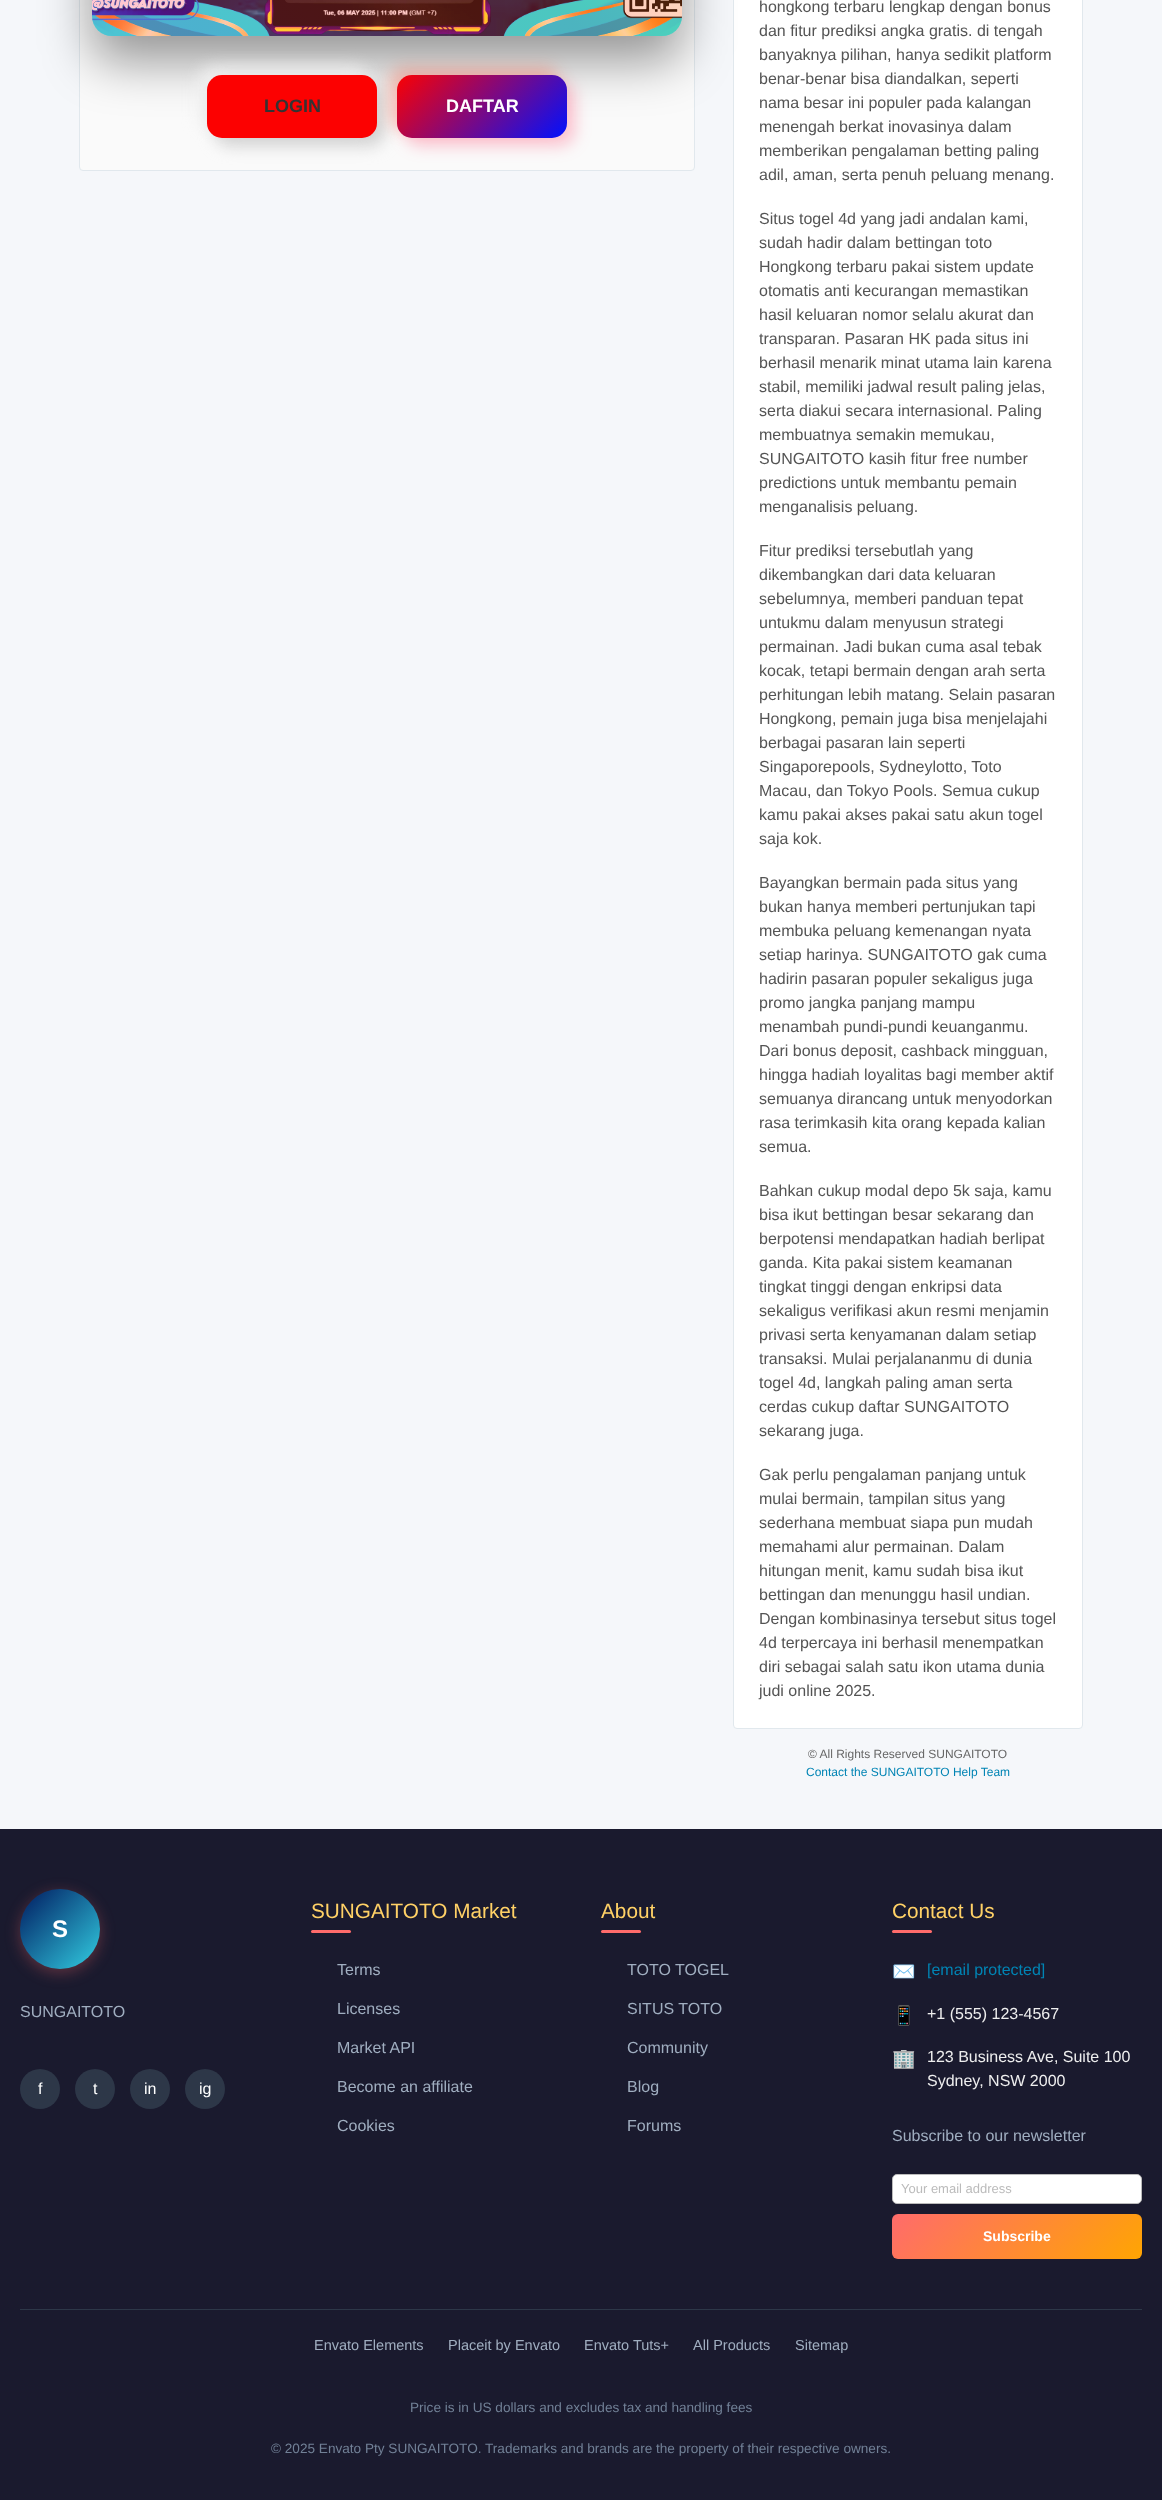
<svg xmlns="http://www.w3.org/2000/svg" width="1162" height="2500">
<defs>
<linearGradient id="g1" gradientUnits="userSpaceOnUse" x1="140" y1="84" x2="635" y2="-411"><stop offset="0" stop-color="#ff416c" stop-opacity="0.3"/><stop offset="0.5" stop-color="#ff4b2b" stop-opacity="0.3"/><stop offset="1" stop-color="#ffd700" stop-opacity="0.3"/></linearGradient>
<linearGradient id="g2" gradientUnits="userSpaceOnUse" x1="424" y1="48" x2="540" y2="165"><stop offset="0" stop-color="#fc0101"/><stop offset="1" stop-color="#01f"/></linearGradient>
<linearGradient id="g3" gradientUnits="userSpaceOnUse" x1="20" y1="1889" x2="100" y2="1969"><stop offset="0" stop-color="#00195f"/><stop offset="1" stop-color="#32cee2"/></linearGradient>
<linearGradient id="g4" gradientUnits="userSpaceOnUse" x1="943" y1="2163" x2="1091" y2="2310"><stop offset="0" stop-color="#ff6b6b"/><stop offset="1" stop-color="#ffa502"/></linearGradient>
</defs>
<rect width="100%" height="100%" fill="#f5f7fa"/>
<rect x="79.5" y="-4.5" width="615" height="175" rx="3.5" fill="#fafafa" stroke="#e1e8ed"/>
<rect x="733.5" y="-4.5" width="349" height="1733" rx="3.5" fill="#fff" stroke="#e1e8ed"/>
<rect x="92" y="-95" width="590" height="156" rx="20" fill="#00000066" filter="blur(25px)"/>
<image x="92" y="0" width="590" height="36" href="media/1.png"/>
<rect x="92" y="-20" width="590" height="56" rx="20" fill="url(#g1)"/>
<rect x="199" y="67" width="170" height="63" rx="15" fill="#efefef" filter="blur(8px)"/>
<rect x="215" y="83" width="170" height="63" rx="15" fill="#d1d1d1" filter="blur(8px)"/>
<rect x="207" y="75" width="170" height="63" rx="15" fill="#fc0101"/>
<text x="264" y="112" style="font-family:Liberation Sans;font-size:18px;font-weight:bold;fill:#333">LOGIN</text>
<rect x="389" y="67" width="170" height="63" rx="15" fill="#ff4b2b4d" filter="blur(8px)"/>
<rect x="405" y="83" width="170" height="63" rx="15" fill="#ff416c4d" filter="blur(8px)"/>
<rect x="397" y="75" width="170" height="63" rx="15" fill="url(#g2)"/>
<text x="446" y="112" style="font-family:Liberation Sans;font-size:18px;font-weight:bold;fill:#fff">DAFTAR</text>
<text x="759" y="12" style="font-family:Liberation Sans;font-size:16px;fill:#545454">hongkong terbaru lengkap dengan bonus</text>
<text x="759" y="36" style="font-family:Liberation Sans;font-size:16px;fill:#545454">dan fitur prediksi angka gratis. di tengah</text>
<text x="759" y="60" style="font-family:Liberation Sans;font-size:16px;fill:#545454">banyaknya pilihan, hanya sedikit platform</text>
<text x="759" y="84" style="font-family:Liberation Sans;font-size:16px;fill:#545454">benar-benar bisa diandalkan, seperti</text>
<text x="759" y="108" style="font-family:Liberation Sans;font-size:16px;fill:#545454">nama besar ini populer pada kalangan</text>
<text x="759" y="132" style="font-family:Liberation Sans;font-size:16px;fill:#545454">menengah berkat inovasinya dalam</text>
<text x="759" y="156" style="font-family:Liberation Sans;font-size:16px;fill:#545454">memberikan pengalaman betting paling</text>
<text x="759" y="180" style="font-family:Liberation Sans;font-size:16px;fill:#545454">adil, aman, serta penuh peluang menang.</text>
<text x="759" y="224" style="font-family:Liberation Sans;font-size:16px;fill:#545454">Situs togel 4d yang jadi andalan kami,</text>
<text x="759" y="248" style="font-family:Liberation Sans;font-size:16px;fill:#545454">sudah hadir dalam bettingan toto</text>
<text x="759" y="272" style="font-family:Liberation Sans;font-size:16px;fill:#545454">Hongkong terbaru pakai sistem update</text>
<text x="759" y="296" style="font-family:Liberation Sans;font-size:16px;fill:#545454">otomatis anti kecurangan memastikan</text>
<text x="759" y="320" style="font-family:Liberation Sans;font-size:16px;fill:#545454">hasil keluaran nomor selalu akurat dan</text>
<text x="759" y="344" style="font-family:Liberation Sans;font-size:16px;fill:#545454">transparan. Pasaran HK pada situs ini</text>
<text x="759" y="368" style="font-family:Liberation Sans;font-size:16px;fill:#545454">berhasil menarik minat utama lain karena</text>
<text x="759" y="392" style="font-family:Liberation Sans;font-size:16px;fill:#545454">stabil, memiliki jadwal result paling jelas,</text>
<text x="759" y="416" style="font-family:Liberation Sans;font-size:16px;fill:#545454">serta diakui secara internasional. Paling</text>
<text x="759" y="440" style="font-family:Liberation Sans;font-size:16px;fill:#545454">membuatnya semakin memukau,</text>
<text x="759" y="464" style="font-family:Liberation Sans;font-size:16px;fill:#545454">SUNGAITOTO kasih fitur free number</text>
<text x="759" y="488" style="font-family:Liberation Sans;font-size:16px;fill:#545454">predictions untuk membantu pemain</text>
<text x="759" y="512" style="font-family:Liberation Sans;font-size:16px;fill:#545454">menganalisis peluang.</text>
<text x="759" y="556" style="font-family:Liberation Sans;font-size:16px;fill:#545454">Fitur prediksi tersebutlah yang</text>
<text x="759" y="580" style="font-family:Liberation Sans;font-size:16px;fill:#545454">dikembangkan dari data keluaran</text>
<text x="759" y="604" style="font-family:Liberation Sans;font-size:16px;fill:#545454">sebelumnya, memberi panduan tepat</text>
<text x="759" y="628" style="font-family:Liberation Sans;font-size:16px;fill:#545454">untukmu dalam menyusun strategi</text>
<text x="759" y="652" style="font-family:Liberation Sans;font-size:16px;fill:#545454">permainan. Jadi bukan cuma asal tebak</text>
<text x="759" y="676" style="font-family:Liberation Sans;font-size:16px;fill:#545454">kocak, tetapi bermain dengan arah serta</text>
<text x="759" y="700" style="font-family:Liberation Sans;font-size:16px;fill:#545454">perhitungan lebih matang. Selain pasaran</text>
<text x="759" y="724" style="font-family:Liberation Sans;font-size:16px;fill:#545454">Hongkong, pemain juga bisa menjelajahi</text>
<text x="759" y="748" style="font-family:Liberation Sans;font-size:16px;fill:#545454">berbagai pasaran lain seperti</text>
<text x="759" y="772" style="font-family:Liberation Sans;font-size:16px;fill:#545454">Singaporepools, Sydneylotto, Toto</text>
<text x="759" y="796" style="font-family:Liberation Sans;font-size:16px;fill:#545454">Macau, dan Tokyo Pools. Semua cukup</text>
<text x="759" y="820" style="font-family:Liberation Sans;font-size:16px;fill:#545454">kamu pakai akses pakai satu akun togel</text>
<text x="759" y="844" style="font-family:Liberation Sans;font-size:16px;fill:#545454">saja kok.</text>
<text x="759" y="888" style="font-family:Liberation Sans;font-size:16px;fill:#545454">Bayangkan bermain pada situs yang</text>
<text x="759" y="912" style="font-family:Liberation Sans;font-size:16px;fill:#545454">bukan hanya memberi pertunjukan tapi</text>
<text x="759" y="936" style="font-family:Liberation Sans;font-size:16px;fill:#545454">membuka peluang kemenangan nyata</text>
<text x="759" y="960" style="font-family:Liberation Sans;font-size:16px;fill:#545454">setiap harinya. SUNGAITOTO gak cuma</text>
<text x="759" y="984" style="font-family:Liberation Sans;font-size:16px;fill:#545454">hadirin pasaran populer sekaligus juga</text>
<text x="759" y="1008" style="font-family:Liberation Sans;font-size:16px;fill:#545454">promo jangka panjang mampu</text>
<text x="759" y="1032" style="font-family:Liberation Sans;font-size:16px;fill:#545454">menambah pundi-pundi keuanganmu.</text>
<text x="759" y="1056" style="font-family:Liberation Sans;font-size:16px;fill:#545454">Dari bonus deposit, cashback mingguan,</text>
<text x="759" y="1080" style="font-family:Liberation Sans;font-size:16px;fill:#545454">hingga hadiah loyalitas bagi member aktif</text>
<text x="759" y="1104" style="font-family:Liberation Sans;font-size:16px;fill:#545454">semuanya dirancang untuk menyodorkan</text>
<text x="759" y="1128" style="font-family:Liberation Sans;font-size:16px;fill:#545454">rasa terimkasih kita orang kepada kalian</text>
<text x="759" y="1152" style="font-family:Liberation Sans;font-size:16px;fill:#545454">semua.</text>
<text x="759" y="1196" style="font-family:Liberation Sans;font-size:16px;fill:#545454">Bahkan cukup modal depo 5k saja, kamu</text>
<text x="759" y="1220" style="font-family:Liberation Sans;font-size:16px;fill:#545454">bisa ikut bettingan besar sekarang dan</text>
<text x="759" y="1244" style="font-family:Liberation Sans;font-size:16px;fill:#545454">berpotensi mendapatkan hadiah berlipat</text>
<text x="759" y="1268" style="font-family:Liberation Sans;font-size:16px;fill:#545454">ganda. Kita pakai sistem keamanan</text>
<text x="759" y="1292" style="font-family:Liberation Sans;font-size:16px;fill:#545454">tingkat tinggi dengan enkripsi data</text>
<text x="759" y="1316" style="font-family:Liberation Sans;font-size:16px;fill:#545454">sekaligus verifikasi akun resmi menjamin</text>
<text x="759" y="1340" style="font-family:Liberation Sans;font-size:16px;fill:#545454">privasi serta kenyamanan dalam setiap</text>
<text x="759" y="1364" style="font-family:Liberation Sans;font-size:16px;fill:#545454">transaksi. Mulai perjalananmu di dunia</text>
<text x="759" y="1388" style="font-family:Liberation Sans;font-size:16px;fill:#545454">togel 4d, langkah paling aman serta</text>
<text x="759" y="1412" style="font-family:Liberation Sans;font-size:16px;fill:#545454">cerdas cukup daftar SUNGAITOTO</text>
<text x="759" y="1436" style="font-family:Liberation Sans;font-size:16px;fill:#545454">sekarang juga.</text>
<text x="759" y="1480" style="font-family:Liberation Sans;font-size:16px;fill:#545454">Gak perlu pengalaman panjang untuk</text>
<text x="759" y="1504" style="font-family:Liberation Sans;font-size:16px;fill:#545454">mulai bermain, tampilan situs yang</text>
<text x="759" y="1528" style="font-family:Liberation Sans;font-size:16px;fill:#545454">sederhana membuat siapa pun mudah</text>
<text x="759" y="1552" style="font-family:Liberation Sans;font-size:16px;fill:#545454">memahami alur permainan. Dalam</text>
<text x="759" y="1576" style="font-family:Liberation Sans;font-size:16px;fill:#545454">hitungan menit, kamu sudah bisa ikut</text>
<text x="759" y="1600" style="font-family:Liberation Sans;font-size:16px;fill:#545454">bettingan dan menunggu hasil undian.</text>
<text x="759" y="1624" style="font-family:Liberation Sans;font-size:16px;fill:#545454">Dengan kombinasinya tersebut situs togel</text>
<text x="759" y="1648" style="font-family:Liberation Sans;font-size:16px;fill:#545454">4d terpercaya ini berhasil menempatkan</text>
<text x="759" y="1672" style="font-family:Liberation Sans;font-size:16px;fill:#545454">diri sebagai salah satu ikon utama dunia</text>
<text x="759" y="1696" style="font-family:Liberation Sans;font-size:16px;fill:#545454">judi online 2025.</text>
<text x="808" y="1758" style="font-family:Liberation Sans;font-size:12px;fill:#666">© All Rights Reserved SUNGAITOTO</text>
<text x="806" y="1776" style="font-family:Liberation Sans;font-size:12px;fill:#0084b4">Contact the SUNGAITOTO Help Team</text>
<rect y="1829" width="1162" height="671" fill="#1a1a2e"/>
<rect x="20" y="1893" width="80" height="80" rx="40" fill="#ff6b6b4d" filter="blur(7.5px)"/>
<circle cx="60" cy="1929" r="40" fill="url(#g3)"/>
<text x="52" y="1937" style="font-family:Liberation Sans;font-size:24px;font-weight:bold;fill:#fff">S</text>
<text x="20" y="2017" style="font-family:Liberation Sans;font-size:16px;fill:#a0aec0">SUNGAITOTO</text>
<circle cx="40" cy="2089" r="20" fill="#2d3748"/>
<text x="38" y="2094" style="font-family:Liberation Sans;font-size:16px;fill:#fff">f</text>
<circle cx="95" cy="2089" r="20" fill="#2d3748"/>
<text x="93" y="2094" style="font-family:Liberation Sans;font-size:16px;fill:#fff">t</text>
<circle cx="150" cy="2089" r="20" fill="#2d3748"/>
<text x="144" y="2094" style="font-family:Liberation Sans;font-size:16px;fill:#fff">in</text>
<circle cx="205" cy="2089" r="20" fill="#2d3748"/>
<text x="199" y="2094" style="font-family:Liberation Sans;font-size:16px;fill:#fff">ig</text>
<text x="311" y="1918" style="font-family:Liberation Sans;font-size:20.75px;fill:#ffd166">SUNGAITOTO Market</text>
<rect x="311" y="1930" width="40" height="3" rx="1.5" fill="#ff6b6b"/>
<text x="337" y="1975" style="font-family:Liberation Sans;font-size:16px;fill:#a0aec0">Terms</text>
<text x="337" y="2014" style="font-family:Liberation Sans;font-size:16px;fill:#a0aec0">Licenses</text>
<text x="337" y="2053" style="font-family:Liberation Sans;font-size:16px;fill:#a0aec0">Market API</text>
<text x="337" y="2092" style="font-family:Liberation Sans;font-size:16px;fill:#a0aec0">Become an affiliate</text>
<text x="337" y="2131" style="font-family:Liberation Sans;font-size:16px;fill:#a0aec0">Cookies</text>
<text x="601" y="1918" style="font-family:Liberation Sans;font-size:20.75px;fill:#ffd166">About</text>
<rect x="601" y="1930" width="40" height="3" rx="1.5" fill="#ff6b6b"/>
<text x="627" y="1975" style="font-family:Liberation Sans;font-size:16px;fill:#a0aec0">TOTO TOGEL</text>
<text x="627" y="2014" style="font-family:Liberation Sans;font-size:16px;fill:#a0aec0">SITUS TOTO</text>
<text x="627" y="2053" style="font-family:Liberation Sans;font-size:16px;fill:#a0aec0">Community</text>
<text x="627" y="2092" style="font-family:Liberation Sans;font-size:16px;fill:#a0aec0">Blog</text>
<text x="627" y="2131" style="font-family:Liberation Sans;font-size:16px;fill:#a0aec0">Forums</text>
<text x="892" y="1918" style="font-family:Liberation Sans;font-size:20.75px;fill:#ffd166">Contact Us</text>
<rect x="892" y="1930" width="40" height="3" rx="1.5" fill="#ff6b6b"/>
<text x="892" y="1978" style="font-family:Noto Color Emoji;font-size:19px;fill:#ff6b6b">✉️</text>
<text x="927" y="1975" style="font-family:Liberation Sans;font-size:16px;fill:#0084b4">[email protected]</text>
<text x="892" y="2022" style="font-family:Noto Color Emoji;font-size:19px;fill:#ff6b6b">📱</text>
<text x="927" y="2019" style="font-family:Liberation Sans;font-size:16px;fill:#eee">+1 (555) 123-4567</text>
<text x="892" y="2065" style="font-family:Noto Color Emoji;font-size:19px;fill:#ff6b6b">🏢</text>
<text x="927" y="2062" style="font-family:Liberation Sans;font-size:16px;fill:#eee">123 Business Ave, Suite 100</text>
<text x="927" y="2086" style="font-family:Liberation Sans;font-size:16px;fill:#eee">Sydney, NSW 2000</text>
<text x="892" y="2141" style="font-family:Liberation Sans;font-size:16px;fill:#a0aec0">Subscribe to our newsletter</text>
<rect x="892.5" y="2174.5" width="249" height="29" rx="4.5" fill="#fff" stroke="#bbb"/>
<text x="901" y="2193" style="font-family:Liberation Sans;font-size:13px;fill:#bbb">Your email address</text>
<rect x="892" y="2214" width="250" height="45" rx="6" fill="url(#g4)"/>
<text x="983" y="2241" style="font-family:Liberation Sans;font-size:14px;font-weight:bold;fill:#fff">Subscribe</text>
<rect x="20" y="2309" width="1122" height="1" fill="#2d3748"/>
<text x="314" y="2350" style="font-family:Liberation Sans;font-size:14.5px;fill:#a0aec0">Envato Elements</text>
<text x="448" y="2350" style="font-family:Liberation Sans;font-size:14.5px;fill:#a0aec0">Placeit by Envato</text>
<text x="584" y="2350" style="font-family:Liberation Sans;font-size:14.5px;fill:#a0aec0">Envato Tuts+</text>
<text x="693" y="2350" style="font-family:Liberation Sans;font-size:14.5px;fill:#a0aec0">All Products</text>
<text x="795" y="2350" style="font-family:Liberation Sans;font-size:14.5px;fill:#a0aec0">Sitemap</text>
<text x="410" y="2412" style="font-family:Liberation Sans;font-size:13.6px;fill:#718096">Price is in US dollars and excludes tax and handling fees</text>
<text x="271" y="2453" style="font-family:Liberation Sans;font-size:13.6px;fill:#718096">© 2025 Envato Pty SUNGAITOTO. Trademarks and brands are the property of their respective owners.</text>
</svg>
